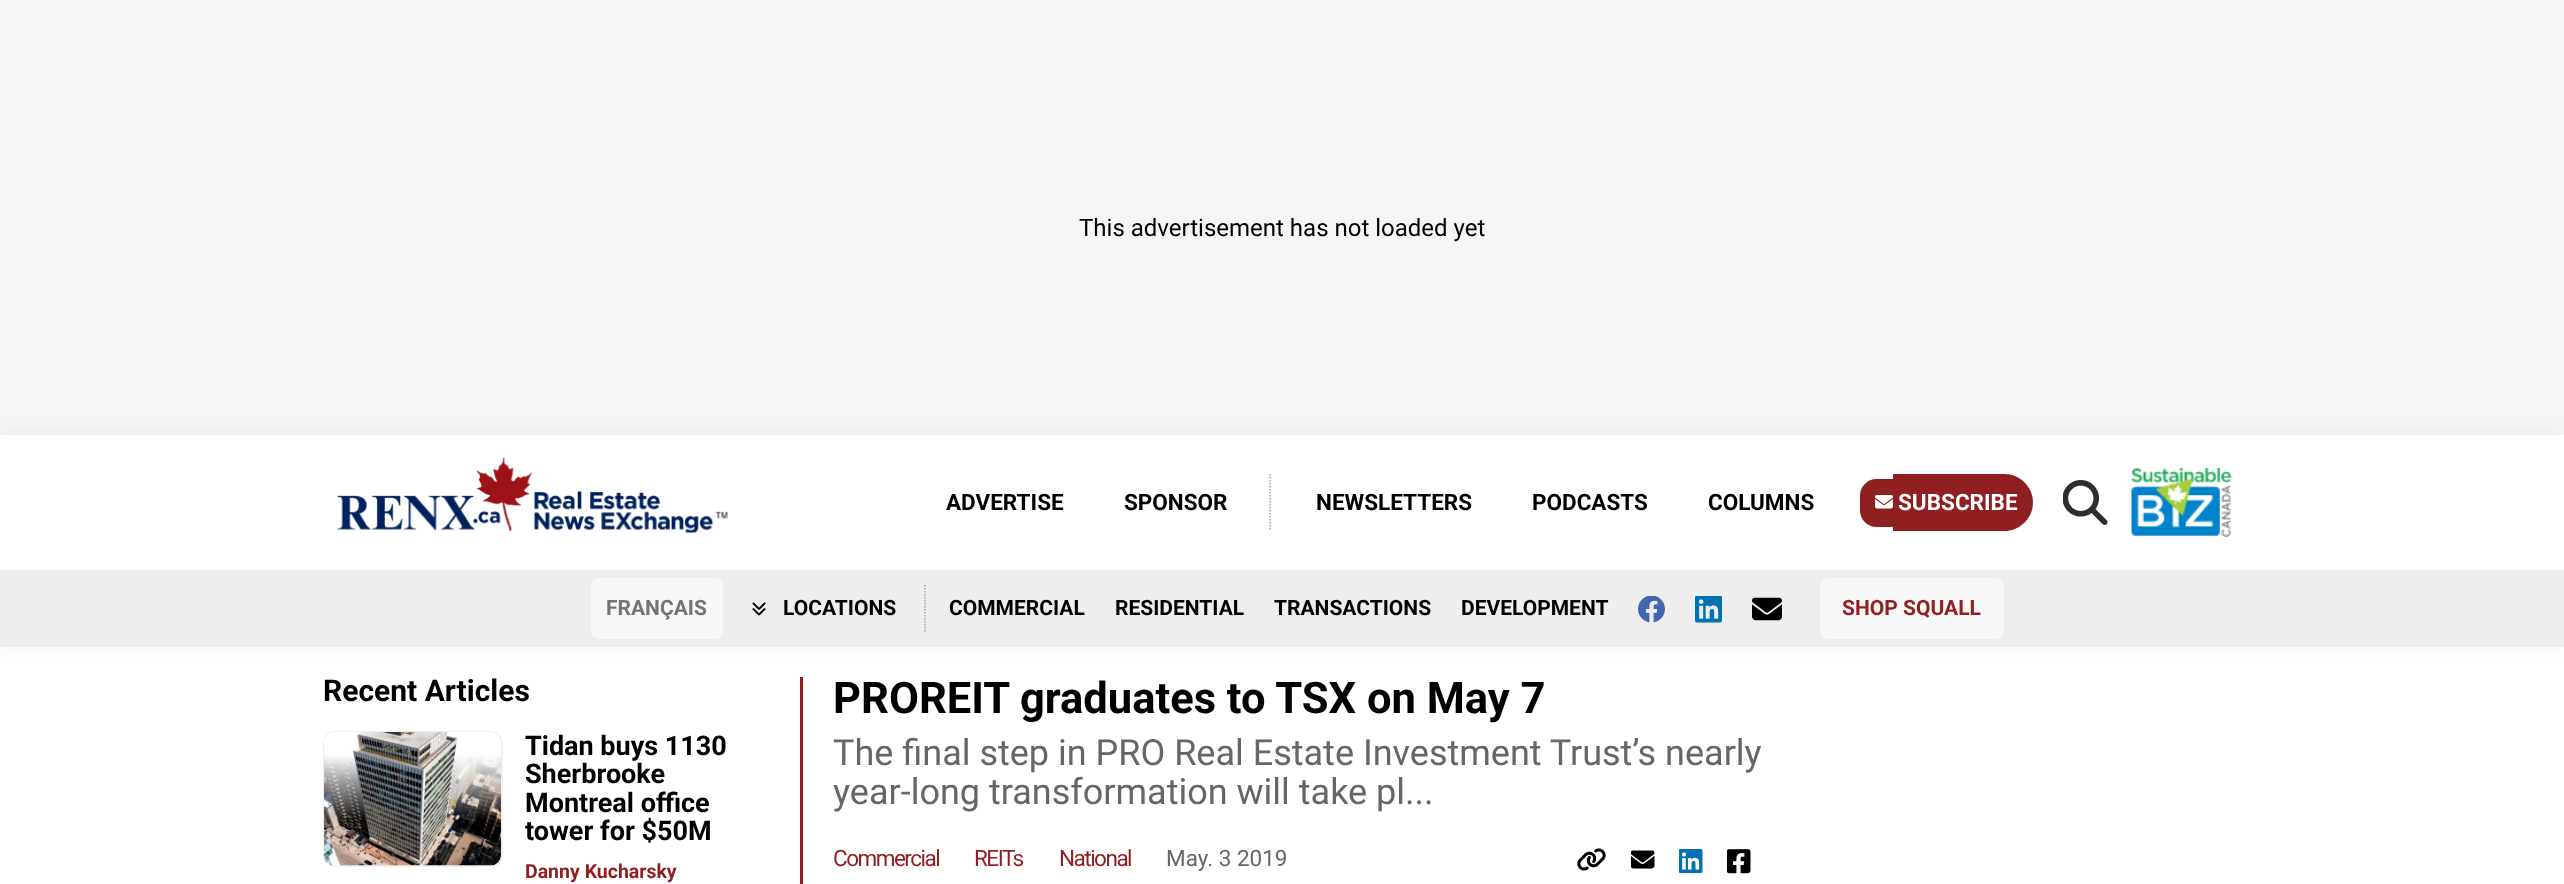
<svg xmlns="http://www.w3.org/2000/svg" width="2564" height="884">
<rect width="100%" height="100%" fill="#fff"/>
<rect width="2564" height="435" fill="#f6f6f6"/>
<text x="1079" y="236" style="font-family:Roboto;font-size:24px;fill:#000">This advertisement has not loaded yet</text>
<rect y="435" width="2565" height="212" fill="#0000000d" filter="blur(9px)"/>
<rect y="435" width="2564" height="135" fill="#fff"/>
<image x="337" y="457" width="391" height="76" href="media/1.png"/>
<text x="946" y="510" style="font-family:Roboto;font-size:22.5px;font-weight:bold;fill:#000">ADVERTISE</text>
<text x="1124" y="510" style="font-family:Roboto;font-size:22.5px;font-weight:bold;fill:#000">SPONSOR</text>
<path d="M1270 474v57" fill="none" stroke="#a4a4a4" stroke-width="1.5" stroke-dasharray="1.5 1.5"/>
<text x="1316" y="510" style="font-family:Roboto;font-size:22.5px;font-weight:bold;fill:#000">NEWSLETTERS</text>
<text x="1532" y="510" style="font-family:Roboto;font-size:22.5px;font-weight:bold;fill:#000">PODCASTS</text>
<text x="1708" y="510" style="font-family:Roboto;font-size:22.5px;font-weight:bold;fill:#000">COLUMNS</text>
<path d="M1876.5 479h16.5v48h-16.5c-9 0-16.5-7.5-16.5-16.5v-15c0-9 7.5-16.5 16.5-16.5z" fill="#901f1f"/>
<path d="M1893 474h111.5c15.5 0 28.5 13 28.5 28.5c0 15.5-13 28.5-28.5 28.5h-111.5z" fill="#901f1f"/>
<image x="1875" y="495" width="18" height="14" href="media/2.png"/>
<text x="1898" y="510" style="font-family:Roboto;font-size:22.5px;font-weight:bold;fill:#fff">SUBSCRIBE</text>
<image x="2063" y="480" width="45" height="45" href="media/3.png"/>
<image x="2131" y="468" width="101" height="70" href="media/4.png"/>
<rect y="570" width="2564" height="77" fill="#eee"/>
<rect x="591" y="578" width="132" height="61" rx="8" fill="#f8f8f8"/>
<text x="606" y="615" style="font-family:Roboto;font-size:21px;font-weight:bold;fill:#757575">FRANÇAIS</text>
<image x="752" y="602" width="14" height="14" href="media/5.png"/>
<text x="783" y="615" style="font-family:Roboto;font-size:21px;font-weight:bold;fill:#000">LOCATIONS</text>
<path d="M925 585v48" fill="none" stroke="#a4a4a4" stroke-width="1.5" stroke-dasharray="1.5 1.5"/>
<text x="949" y="615" style="font-family:Roboto;font-size:21px;font-weight:bold;fill:#000">COMMERCIAL</text>
<text x="1115" y="615" style="font-family:Roboto;font-size:21px;font-weight:bold;fill:#000">RESIDENTIAL</text>
<text x="1274" y="615" style="font-family:Roboto;font-size:21px;font-weight:bold;fill:#000">TRANSACTIONS</text>
<text x="1461" y="615" style="font-family:Roboto;font-size:21px;font-weight:bold;fill:#000">DEVELOPMENT</text>
<image x="1638" y="596" width="27" height="27" href="media/6.png"/>
<image x="1695" y="596" width="27" height="27" href="media/7.png"/>
<image x="1752" y="597" width="30" height="24" href="media/8.png"/>
<rect x="1820" y="578" width="184" height="61" rx="8" fill="#f8f8f8"/>
<text x="1842" y="615" style="font-family:Roboto;font-size:21px;font-weight:bold;fill:#901f1f">SHOP SQUALL</text>
<rect x="800" y="677" width="3" height="207" fill="#901f1f"/>
<text x="323" y="701" style="font-family:Roboto;font-size:30px;font-weight:bold;fill:#000">Recent Articles</text>
<rect x="324" y="732" width="178" height="134" rx="11" fill="none" stroke="#efefef" stroke-width="2"/>
<image x="324" y="732" width="177" height="134" href="media/9.png"/>
<text x="525" y="755" style="font-family:Roboto;font-size:27px;font-weight:bold;fill:#000">Tidan buys 1130</text>
<text x="525" y="783" style="font-family:Roboto;font-size:27px;font-weight:bold;fill:#000">Sherbrooke</text>
<text x="525" y="812" style="font-family:Roboto;font-size:27px;font-weight:bold;fill:#000">Montreal office</text>
<text x="525" y="840" style="font-family:Roboto;font-size:27px;font-weight:bold;fill:#000">tower for $50M</text>
<text x="525" y="878" style="font-family:Roboto;font-size:19.5px;font-weight:bold;fill:#901f1f">Danny Kucharsky</text>
<text x="833" y="713" style="font-family:Roboto;font-size:43.5px;font-weight:bold;fill:#000">PROREIT graduates to TSX on May 7</text>
<text x="833" y="765" style="font-family:Roboto;font-size:36px;fill:#666">The final step in PRO Real Estate Investment Trust’s nearly</text>
<text x="833" y="804" style="font-family:Roboto;font-size:36px;fill:#666">year-long transformation will take pl...</text>
<text x="833" y="866" style="font-family:Roboto;font-size:22.5px;letter-spacing:-1.5px;fill:#901f1f">Commercial</text>
<text x="974" y="866" style="font-family:Roboto;font-size:22.5px;letter-spacing:-1.5px;fill:#901f1f">REITs</text>
<text x="1059" y="866" style="font-family:Roboto;font-size:22.5px;letter-spacing:-1.5px;fill:#901f1f">National</text>
<text x="1166" y="866" style="font-family:Roboto;font-size:22.5px;fill:#666">May. 3 2019</text>
<image x="1577" y="848" width="29" height="23" href="media/10.png"/>
<image x="1631" y="850" width="24" height="19" href="media/11.png"/>
<image x="1679" y="849" width="24" height="24" href="media/12.png"/>
<image x="1727" y="849" width="24" height="25" href="media/13.png"/>
</svg>
